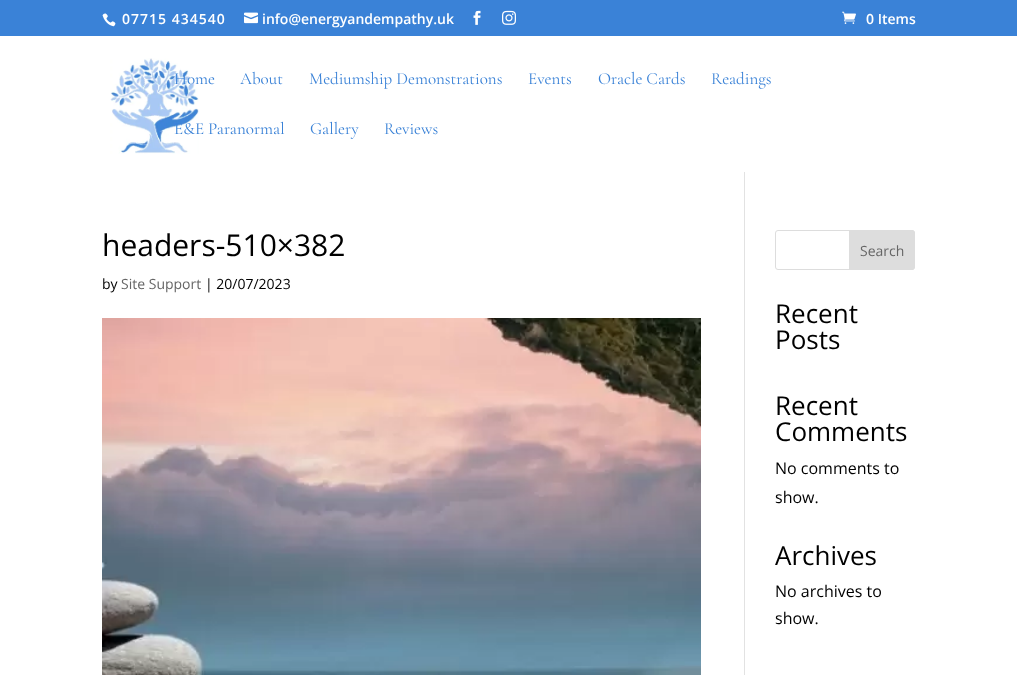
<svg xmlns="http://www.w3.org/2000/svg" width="1017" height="675">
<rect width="100%" height="100%" fill="#3a82d7"/>
<image x="102" y="13" width="14" height="14" href="media/1.png"/>
<text x="122" y="24" style="font-family:Open Sans;font-size:14px;font-weight:600;letter-spacing:1px;fill:#fff">07715 434540</text>
<image x="244" y="12" width="14" height="12" href="media/2.png"/>
<text x="262" y="24" style="font-family:Open Sans;font-size:14px;font-weight:600;fill:#fff">info@energyandempathy.uk</text>
<image x="473" y="10" width="8" height="15" href="media/3.png"/>
<image x="502" y="10" width="14" height="15" href="media/4.png"/>
<image x="842" y="11" width="14" height="13" href="media/5.png"/>
<text x="866" y="24" style="font-family:Open Sans;font-size:14px;font-weight:600;fill:#fff">0 Items</text>
<rect y="36" width="1017" height="639" fill="#fff"/>
<image x="110" y="58" width="89" height="96" href="media/6.png"/>
<text x="174" y="84" style="font-family:Cormorant Garamond;font-size:17px;fill:#3a82d7">Home</text>
<text x="240" y="84" style="font-family:Cormorant Garamond;font-size:17px;fill:#3a82d7">About</text>
<text x="309" y="84" style="font-family:Cormorant Garamond;font-size:17px;fill:#3a82d7">Mediumship Demonstrations</text>
<text x="528" y="84" style="font-family:Cormorant Garamond;font-size:17px;fill:#3a82d7">Events</text>
<text x="598" y="84" style="font-family:Cormorant Garamond;font-size:17px;fill:#3a82d7">Oracle Cards</text>
<text x="711" y="84" style="font-family:Cormorant Garamond;font-size:17px;fill:#3a82d7">Readings</text>
<text x="174" y="134" style="font-family:Cormorant Garamond;font-size:17px;fill:#3a82d7">E&amp;E Paranormal</text>
<text x="310" y="134" style="font-family:Cormorant Garamond;font-size:17px;fill:#3a82d7">Gallery</text>
<text x="384" y="134" style="font-family:Cormorant Garamond;font-size:17px;fill:#3a82d7">Reviews</text>
<rect x="744" y="172" width="1" height="503" fill="#e2e2e2"/>
<text x="102" y="256" style="font-family:Open Sans;font-size:30px;fill:#000">headers-510×382</text>
<text x="102" y="289" style="font-family:Open Sans;font-size:14px;fill:#000">by</text>
<text x="121" y="289" style="font-family:Open Sans;font-size:14px;fill:#666">Site Support</text>
<text x="205" y="289" style="font-family:Open Sans;font-size:14px;fill:#000">| 20/07/2023</text>
<image x="102" y="318" width="599" height="357" href="media/7.png"/>
<rect x="775.5" y="230.5" width="139" height="39" rx="2.5" fill="none" stroke="#ddd"/>
<path d="M849.5 230.5h62.5c1.5 0 2.5 1 2.5 2.5v34c0 1.5-1 2.5-2.5 2.5h-62.5z" fill="#ddd" stroke="#ddd"/>
<text x="860" y="256" style="font-family:Open Sans;font-size:14px;fill:#666">Search</text>
<text x="775" y="323" style="font-family:Open Sans;font-size:26px;fill:#000">Recent</text>
<text x="775" y="349" style="font-family:Open Sans;font-size:26px;fill:#000">Posts</text>
<text x="775" y="415" style="font-family:Open Sans;font-size:26px;fill:#000">Recent</text>
<text x="775" y="441" style="font-family:Open Sans;font-size:26px;fill:#000">Comments</text>
<text x="775" y="474" style="font-family:Open Sans;font-size:16px;fill:#000">No comments to</text>
<text x="775" y="503" style="font-family:Open Sans;font-size:16px;fill:#000">show.</text>
<text x="775" y="565" style="font-family:Open Sans;font-size:26px;fill:#000">Archives</text>
<text x="775" y="597" style="font-family:Open Sans;font-size:16px;fill:#000">No archives to</text>
<text x="775" y="624" style="font-family:Open Sans;font-size:16px;fill:#000">show.</text>
</svg>
